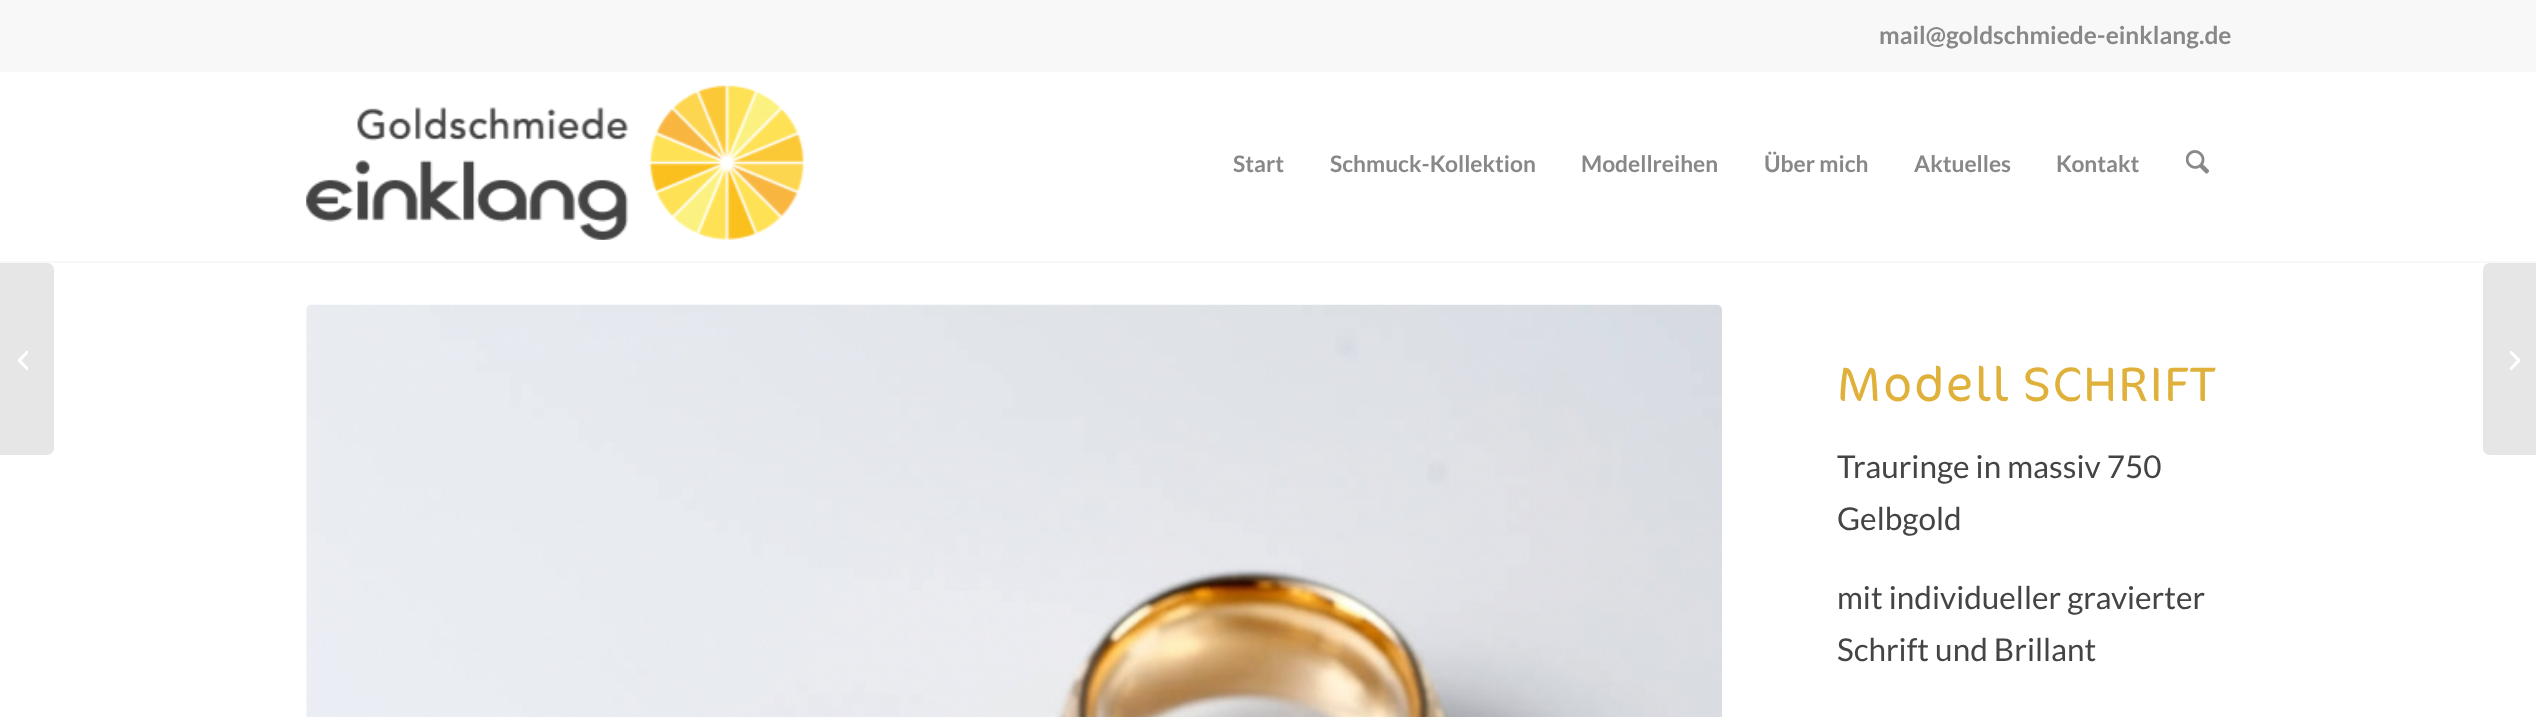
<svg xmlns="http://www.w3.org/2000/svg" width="2536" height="717">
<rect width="100%" height="100%" fill="#fff"/>
<rect width="2536" height="72" fill="#f8f8f8"/>
<text x="1879" y="44" style="font-family:Lato;font-size:24.5px;font-weight:bold;fill:#888">mail@goldschmiede-einklang.de</text>
<rect y="261" width="2536" height="2" fill="#f8f8f8"/>
<image x="306" y="85" width="498" height="155" href="media/1.png"/>
<text x="1233" y="172" style="font-family:Lato;font-size:22.75px;font-weight:bold;fill:#888">Start</text>
<text x="1330" y="172" style="font-family:Lato;font-size:22.75px;font-weight:bold;fill:#888">Schmuck-Kollektion</text>
<text x="1581" y="172" style="font-family:Lato;font-size:22.75px;font-weight:bold;fill:#888">Modellreihen</text>
<text x="1764" y="172" style="font-family:Lato;font-size:22.75px;font-weight:bold;fill:#888">Über mich</text>
<text x="1914" y="172" style="font-family:Lato;font-size:22.75px;font-weight:bold;fill:#888">Aktuelles</text>
<text x="2056" y="172" style="font-family:Lato;font-size:22.75px;font-weight:bold;fill:#888">Kontakt</text>
<image x="2186" y="150" width="23" height="24" href="media/2.png"/>
<path d="M0 263h47c4 0 7 3 7 7v178c0 4-3 7-7 7h-47z" fill="#e6e6e6"/>
<image x="18" y="351" width="10" height="19" href="media/3.png"/>
<image x="306" y="304" width="1416" height="413" href="media/4.png"/>
<text x="1837" y="401" style="font-family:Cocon;font-size:49px;font-weight:300;letter-spacing:1.75px;fill:#e0b13a">Modell SCHRIFT</text>
<text x="1837" y="478" style="font-family:Lato;font-size:31.5px;fill:#444">Trauringe in massiv 750</text>
<text x="1837" y="530" style="font-family:Lato;font-size:31.5px;fill:#444">Gelbgold</text>
<text x="1837" y="609" style="font-family:Lato;font-size:31.5px;fill:#444">mit individueller gravierter</text>
<text x="1837" y="661" style="font-family:Lato;font-size:31.5px;fill:#444">Schrift und Brillant</text>
<path d="M2490 263h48v192h-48c-4 0-7-3-7-7v-178c0-4 3-7 7-7z" fill="#e6e6e6"/>
<image x="2510" y="351" width="10" height="19" href="media/5.png"/>
</svg>
